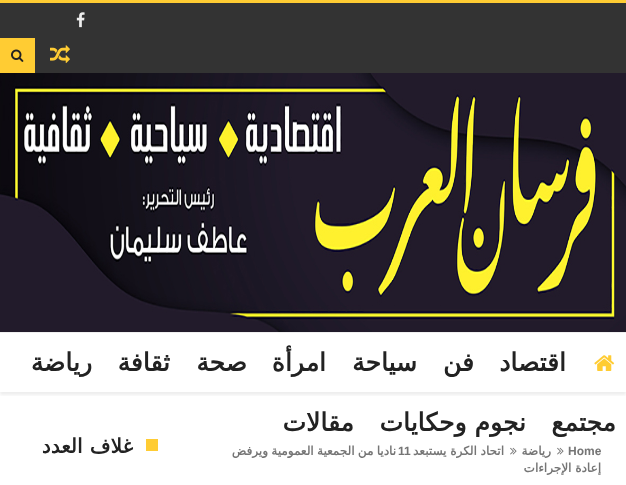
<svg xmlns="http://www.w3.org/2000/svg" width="626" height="485">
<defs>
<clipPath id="clip1"><rect x="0" y="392" width="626" height="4"/></clipPath>
</defs>
<rect width="100%" height="100%" fill="#fff"/>
<rect y="3" width="626" height="70" fill="#333"/>
<rect width="626" height="3" fill="#fc3"/>
<image x="76" y="12" width="9" height="16" href="media/1.png"/>
<image x="50" y="45" width="20" height="18" href="media/2.png"/>
<rect y="38" width="35" height="35" fill="#fc3"/>
<image x="11" y="49" width="13" height="13" href="media/3.png"/>
<image x="0" y="73" width="626" height="259" href="media/4.png"/>
<g clip-path="url(#clip1)">
<rect y="335" width="626" height="60" fill="#00000012" filter="blur(1.5px)"/>
</g>
<rect y="332" width="626" height="1" fill="#efefef"/>
<image x="594" y="355" width="21" height="16" href="media/5.png"/>
<text x="566" y="371" style="font-family:DejaVu Sans;font-size:25px;font-weight:bold;direction:rtl;fill:#222">اقتصاد</text>
<text x="474" y="371" style="font-family:DejaVu Sans;font-size:25px;font-weight:bold;direction:rtl;fill:#222">فن</text>
<text x="417" y="371" style="font-family:DejaVu Sans;font-size:25px;font-weight:bold;direction:rtl;fill:#222">سياحة</text>
<text x="326" y="371" style="font-family:DejaVu Sans;font-size:25px;font-weight:bold;direction:rtl;fill:#222">امرأة</text>
<text x="247" y="371" style="font-family:DejaVu Sans;font-size:25px;font-weight:bold;direction:rtl;fill:#222">صحة</text>
<text x="170" y="371" style="font-family:DejaVu Sans;font-size:25px;font-weight:bold;direction:rtl;fill:#222">ثقافة</text>
<text x="92" y="371" style="font-family:DejaVu Sans;font-size:25px;font-weight:bold;direction:rtl;fill:#222">رياضة</text>
<text x="616" y="431" style="font-family:DejaVu Sans;font-size:25px;font-weight:bold;direction:rtl;fill:#222">مجتمع</text>
<text x="526" y="431" style="font-family:DejaVu Sans;font-size:25px;font-weight:bold;direction:rtl;fill:#222">نجوم وحكايات</text>
<text x="354" y="431" style="font-family:DejaVu Sans;font-size:25px;font-weight:bold;direction:rtl;fill:#222">مقالات</text>
<text x="568" y="455" style="font-family:Liberation Sans;font-size:12px;font-weight:bold;fill:#757575">Home</text>
<image x="557" y="447" width="7" height="8" href="media/6.png"/>
<text x="551" y="455" style="font-family:DejaVu Sans;font-size:12px;font-weight:bold;direction:rtl;fill:#757575">رياضة</text>
<image x="510" y="447" width="7" height="8" href="media/6.png"/>
<text x="504" y="455" style="font-family:DejaVu Sans;font-size:12px;font-weight:bold;direction:rtl;fill:#757575">اتحاد الكرة يستبعد</text>
<text x="398" y="455" style="font-family:Liberation Sans;font-size:12px;font-weight:bold;fill:#757575">11</text>
<text x="396" y="455" word-spacing="-0.5" style="font-family:DejaVu Sans;font-size:12px;font-weight:bold;direction:rtl;fill:#757575">ناديا من الجمعية العمومية ويرفض</text>
<text x="601" y="472" style="font-family:DejaVu Sans;font-size:12px;font-weight:bold;direction:rtl;fill:#757575">إعادة الإجراءات</text>
<rect x="146" y="439" width="12" height="12" fill="#fc3"/>
<text x="133" y="453" word-spacing="1" style="font-family:DejaVu Sans;font-size:20px;font-weight:bold;direction:rtl;fill:#222">غلاف العدد</text>
</svg>
